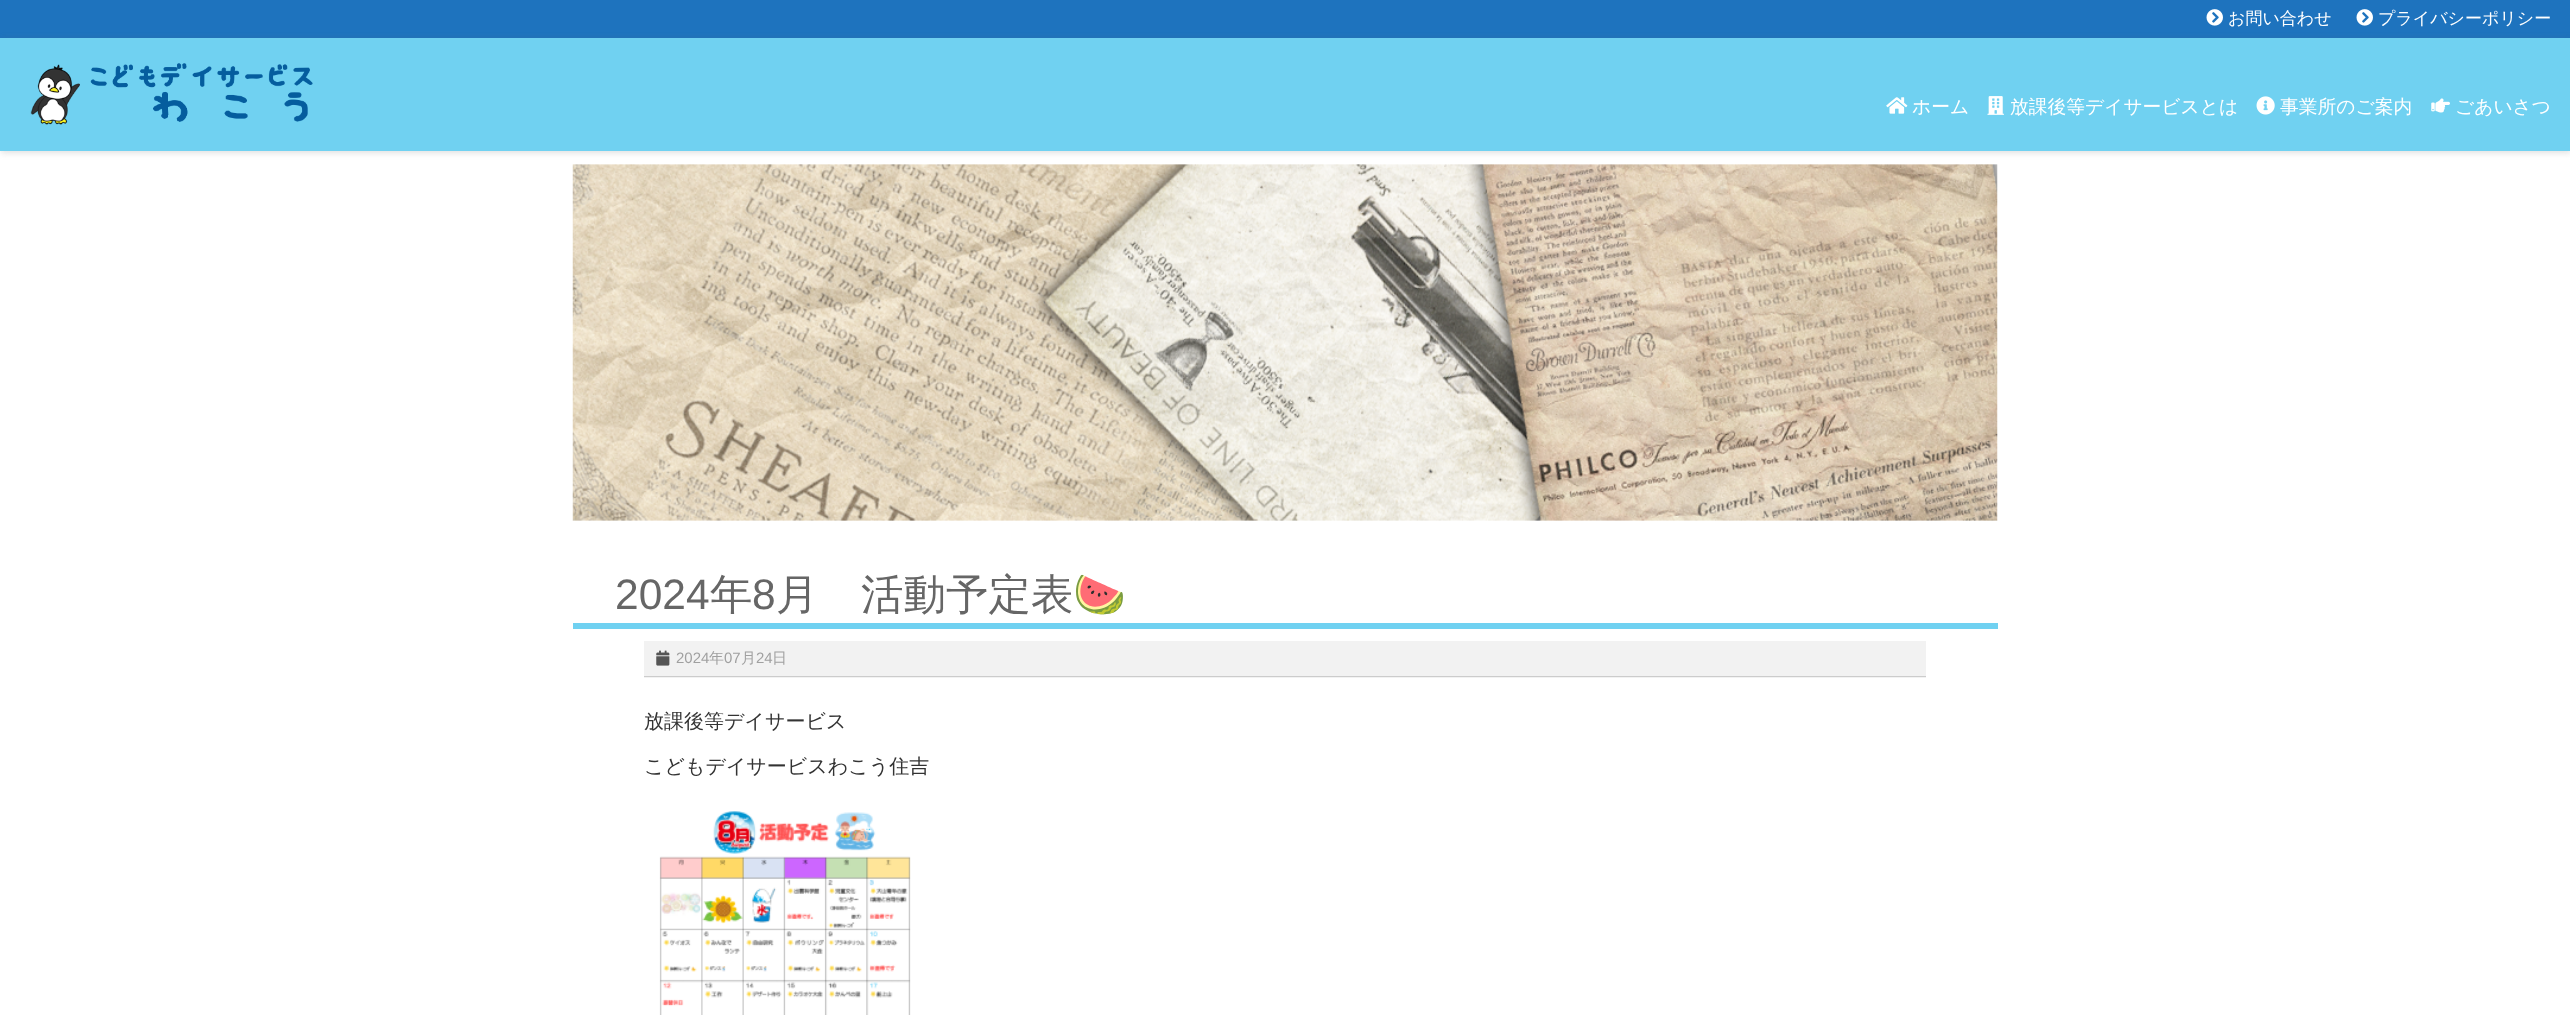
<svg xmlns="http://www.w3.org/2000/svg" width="2570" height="1015">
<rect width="100%" height="100%" fill="#fff"/>
<rect width="2570" height="38" fill="#1e73be"/>
<image x="2206" y="9" width="17" height="17" href="media/1.png"/>
<text x="2228" y="24" style="font-family:WenQuanYi Zen Hei;font-size:17px;font-weight:500;fill:#fff">お問い合わせ</text>
<image x="2356" y="9" width="17" height="17" href="media/1.png"/>
<text x="2378" y="24" style="font-family:WenQuanYi Zen Hei;font-size:17px;font-weight:500;fill:#fff">プライバシーポリシー</text>
<rect x="1" y="39" width="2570" height="114" fill="#64646433" filter="blur(3px)"/>
<rect y="38" width="2570" height="113" fill="#70d1f1"/>
<image x="30" y="63" width="283" height="62" href="media/2.png"/>
<image x="1886" y="97" width="22" height="17" href="media/3.png"/>
<text x="1912" y="113" style="font-family:WenQuanYi Zen Hei;font-size:18.75px;font-weight:500;fill:#fff">ホーム</text>
<image x="1987" y="96" width="17" height="19" href="media/4.png"/>
<text x="2010" y="113" style="font-family:WenQuanYi Zen Hei;font-size:18.75px;font-weight:500;fill:#fff">放課後等デイサービスとは</text>
<image x="2256" y="96" width="19" height="19" href="media/5.png"/>
<text x="2280" y="113" style="font-family:WenQuanYi Zen Hei;font-size:18.75px;font-weight:500;fill:#fff">事業所のご案内</text>
<image x="2431" y="98" width="19" height="15" href="media/6.png"/>
<text x="2455" y="113" style="font-family:WenQuanYi Zen Hei;font-size:18.75px;font-weight:500;fill:#fff">ごあいさつ</text>
<image x="572" y="164" width="1426" height="357" href="media/7.png"/>
<rect x="573" y="623" width="1425" height="6" fill="#70d1f1"/>
<text x="615" y="609" style="font-family:Liberation Sans;font-size:42.5px;fill:#666">2024</text>
<text x="710" y="609" style="font-family:WenQuanYi Zen Hei;font-size:42.5px;font-weight:500;fill:#666">年</text>
<text x="752" y="609" style="font-family:Liberation Sans;font-size:42.5px;fill:#666">8</text>
<text x="776" y="609" style="font-family:WenQuanYi Zen Hei;font-size:42.5px;font-weight:500;fill:#666">月　活動予定表</text>
<text x="1073" y="609" style="font-family:Noto Color Emoji;font-size:42.5px;fill:#666">🍉</text>
<rect x="644" y="641" width="1282" height="37" fill="#f2f2f2"/>
<rect x="644" y="676" width="1282" height="1" fill="#ccc"/>
<image x="656" y="650" width="14" height="16" href="media/8.png"/>
<text x="676" y="663" style="font-family:Liberation Sans;font-size:15px;fill:#a0a0a0">2024</text>
<text x="709" y="663" style="font-family:WenQuanYi Zen Hei;font-size:15px;font-weight:500;fill:#a0a0a0">年</text>
<text x="724" y="663" style="font-family:Liberation Sans;font-size:15px;fill:#a0a0a0">07</text>
<text x="741" y="663" style="font-family:WenQuanYi Zen Hei;font-size:15px;font-weight:500;fill:#a0a0a0">月</text>
<text x="756" y="663" style="font-family:Liberation Sans;font-size:15px;fill:#a0a0a0">24</text>
<text x="772" y="663" style="font-family:WenQuanYi Zen Hei;font-size:15px;font-weight:500;fill:#a0a0a0">日</text>
<text x="644" y="728" style="font-family:WenQuanYi Zen Hei;font-size:20px;font-weight:500;fill:#333">放課後等デイサービス</text>
<text x="644" y="773" style="font-family:WenQuanYi Zen Hei;font-size:20px;font-weight:500;fill:#333">こどもデイサービスわこう住吉</text>
<image x="659" y="811" width="252" height="204" href="media/9.png"/>
</svg>
